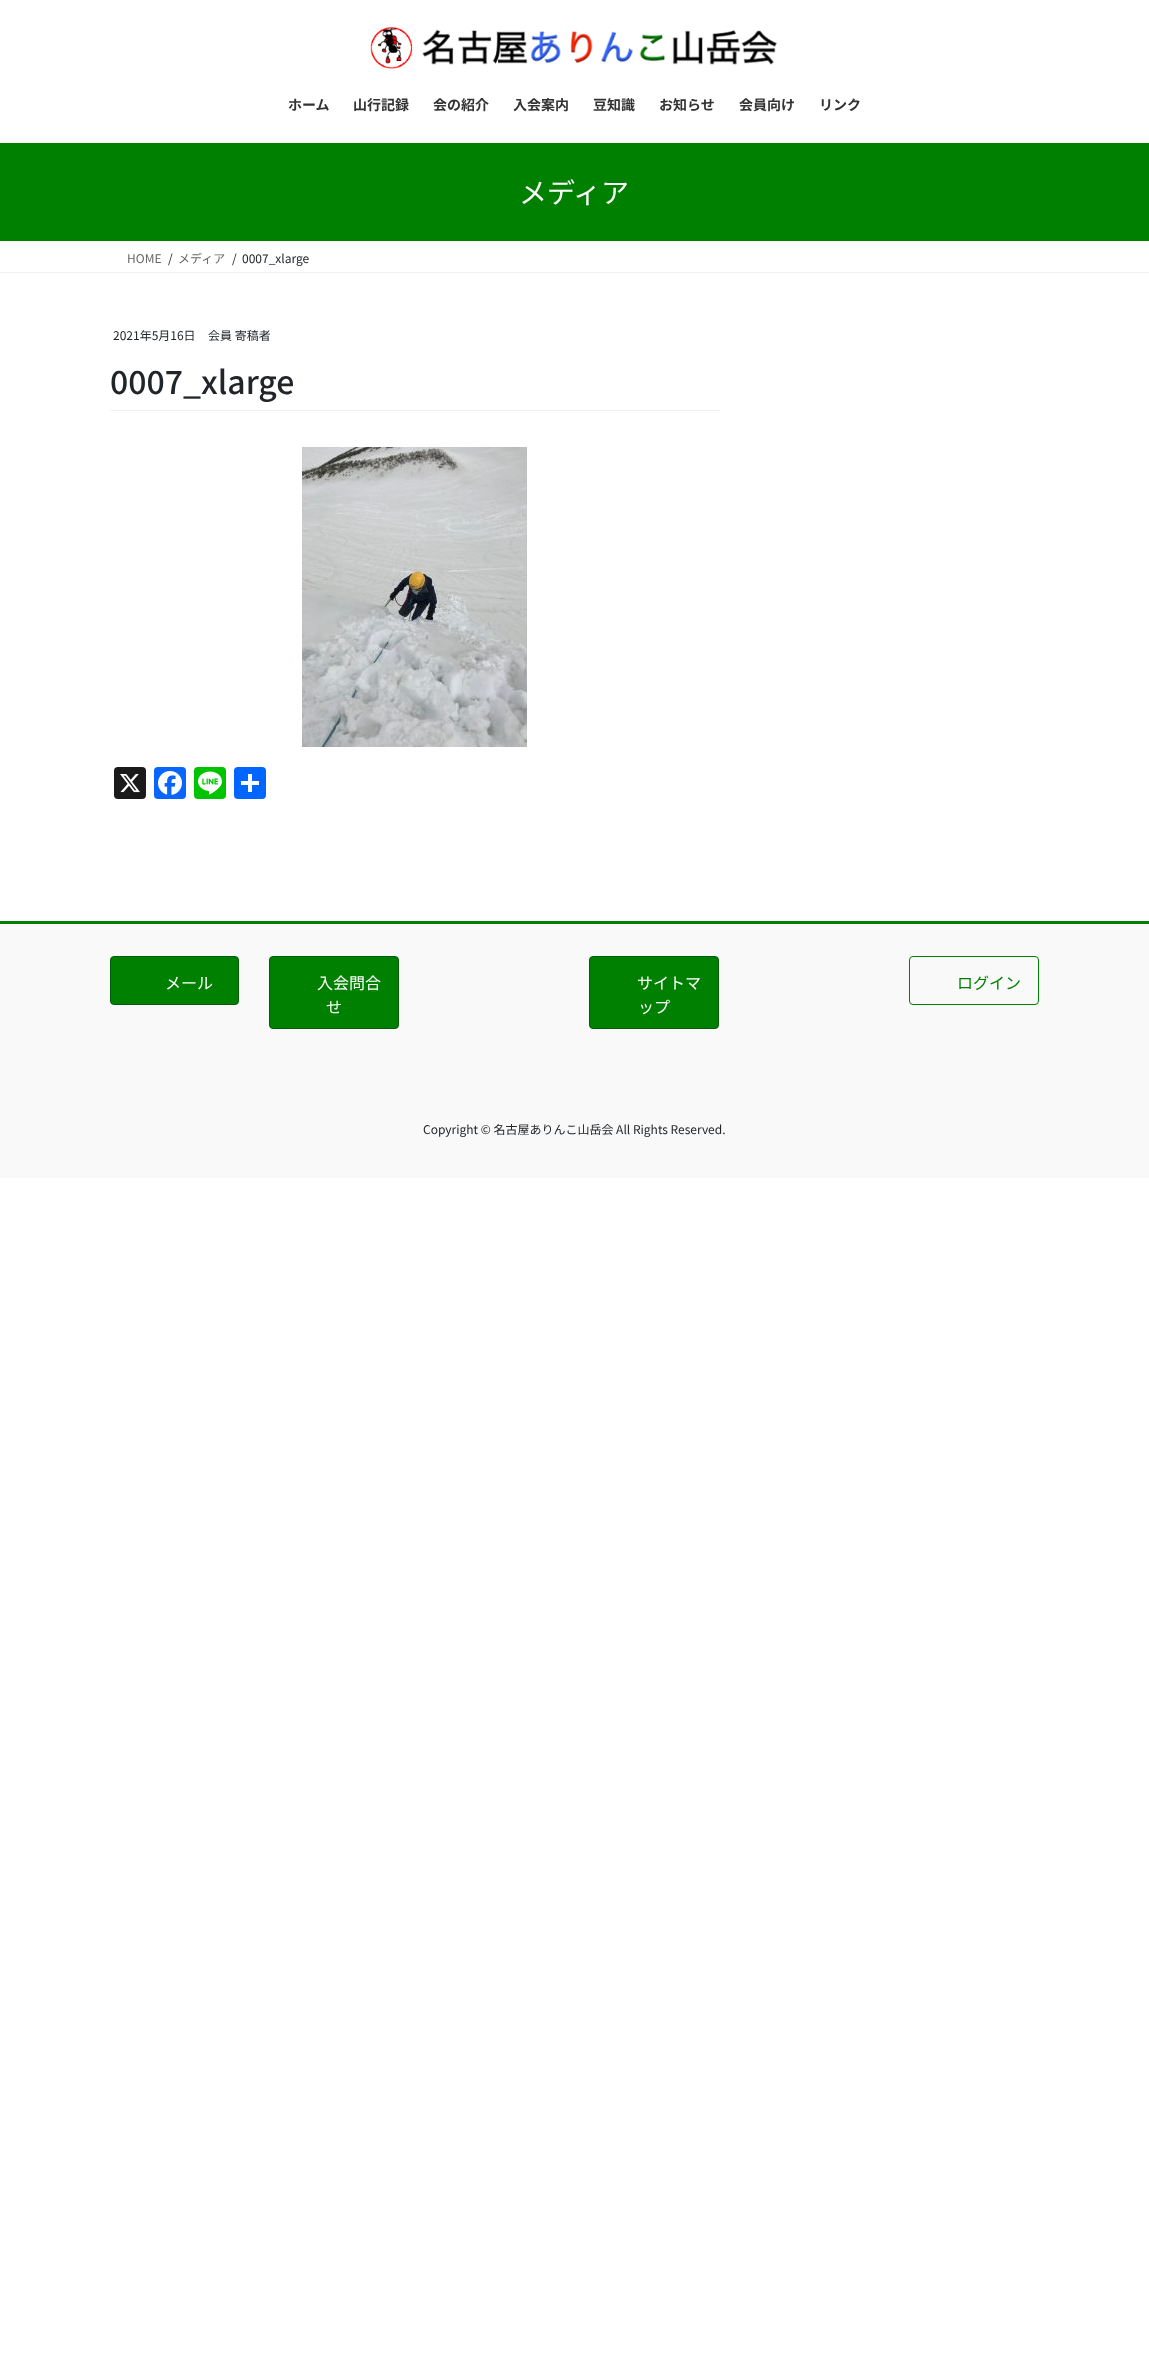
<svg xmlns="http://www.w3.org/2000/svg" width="1149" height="2360">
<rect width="100%" height="100%" fill="#fff"/>
<image x="370" y="27" width="407" height="42" href="media/1.png"/>
<text x="288" y="110" style="font-family:Noto Sans JP;font-size:14px;font-weight:bold;fill:#333">ホーム</text>
<text x="353" y="110" style="font-family:Noto Sans JP;font-size:14px;font-weight:bold;fill:#333">山行記録</text>
<text x="433" y="110" style="font-family:Noto Sans JP;font-size:14px;font-weight:bold;fill:#333">会の紹介</text>
<text x="513" y="110" style="font-family:Noto Sans JP;font-size:14px;font-weight:bold;fill:#333">入会案内</text>
<text x="593" y="110" style="font-family:Noto Sans JP;font-size:14px;font-weight:bold;fill:#333">豆知識</text>
<text x="659" y="110" style="font-family:Noto Sans JP;font-size:14px;font-weight:bold;fill:#333">お知らせ</text>
<text x="739" y="110" style="font-family:Noto Sans JP;font-size:14px;font-weight:bold;fill:#333">会員向け</text>
<text x="819" y="110" style="font-family:Noto Sans JP;font-size:14px;font-weight:bold;fill:#333">リンク</text>
<rect y="143" width="1149" height="98" fill="#008000"/>
<text x="519" y="203" style="font-family:Noto Sans JP;font-size:28px;fill:#fff">メディア</text>
<rect y="272" width="1149" height="1" fill="#f2f2f2"/>
<text x="127" y="263" style="font-family:Noto Sans JP;font-size:12px;fill:#666">HOME</text>
<text x="168" y="263" style="font-family:Noto Sans JP;font-size:12px;fill:#212529">/</text>
<text x="178" y="263" style="font-family:Noto Sans JP;font-size:12px;fill:#666">メディア</text>
<text x="232" y="263" style="font-family:Noto Sans JP;font-size:12px;fill:#212529">/</text>
<text x="242" y="263" style="font-family:Noto Sans JP;font-size:12px;fill:#212529">0007_xlarge</text>
<rect x="110" y="410" width="610" height="1" fill="#f2f2f2"/>
<text x="113" y="340" style="font-family:Noto Sans JP;font-size:12px;fill:#212529">2021年5月16日</text>
<text x="208" y="340" style="font-family:Noto Sans JP;font-size:12px;fill:#212529">会員 寄稿者</text>
<text x="110" y="394" style="font-family:Noto Sans JP;font-size:32px;font-weight:500;fill:#212529">0007_xlarge</text>
<image x="302" y="447" width="225" height="300" href="media/2.png"/>
<rect x="114" y="767" width="32" height="32" rx="4" fill="#1a1a1a"/>
<image x="120" y="774" width="20" height="19" href="media/3.png"/>
<rect x="154" y="767" width="32" height="32" rx="4" fill="#0866ff"/>
<image x="158" y="771" width="24" height="24" href="media/4.png"/>
<rect x="194" y="767" width="32" height="32" rx="4" fill="#00c300"/>
<image x="198" y="771" width="24" height="24" href="media/5.png"/>
<rect x="234" y="767" width="32" height="32" rx="4" fill="#0166ff"/>
<rect x="248" y="774" width="4" height="18" fill="#fff"/>
<rect x="241" y="781" width="18" height="4" fill="#fff"/>
<rect y="924" width="1149" height="254" fill="#f9f9f9"/>
<rect y="921" width="1149" height="3" fill="#008000"/>
<rect x="110.5" y="956.5" width="128" height="48" rx="3.5" fill="#008000" stroke="#005b0a"/>
<text x="165" y="989" style="font-family:Noto Sans JP;font-size:16px;fill:#fff">メール</text>
<rect x="269.5" y="956.5" width="129" height="72" rx="3.5" fill="#008000" stroke="#005b0a"/>
<text x="317" y="989" style="font-family:Noto Sans JP;font-size:16px;fill:#fff">入会問合</text>
<text x="326" y="1013" style="font-family:Noto Sans JP;font-size:16px;fill:#fff">せ</text>
<rect x="589.5" y="956.5" width="129" height="72" rx="3.5" fill="#008000" stroke="#005b0a"/>
<text x="637" y="989" style="font-family:Noto Sans JP;font-size:16px;fill:#fff">サイトマ</text>
<text x="638" y="1013" style="font-family:Noto Sans JP;font-size:16px;fill:#fff">ップ</text>
<rect x="909.5" y="956.5" width="129" height="48" rx="3.5" fill="none" stroke="#008000"/>
<text x="957" y="989" style="font-family:Noto Sans JP;font-size:16px;fill:#008000">ログイン</text>
<text x="423" y="1134" style="font-family:Noto Sans JP;font-size:12px;fill:#212529">Copyright © 名古屋ありんこ山岳会 All Rights Reserved.</text>
</svg>
